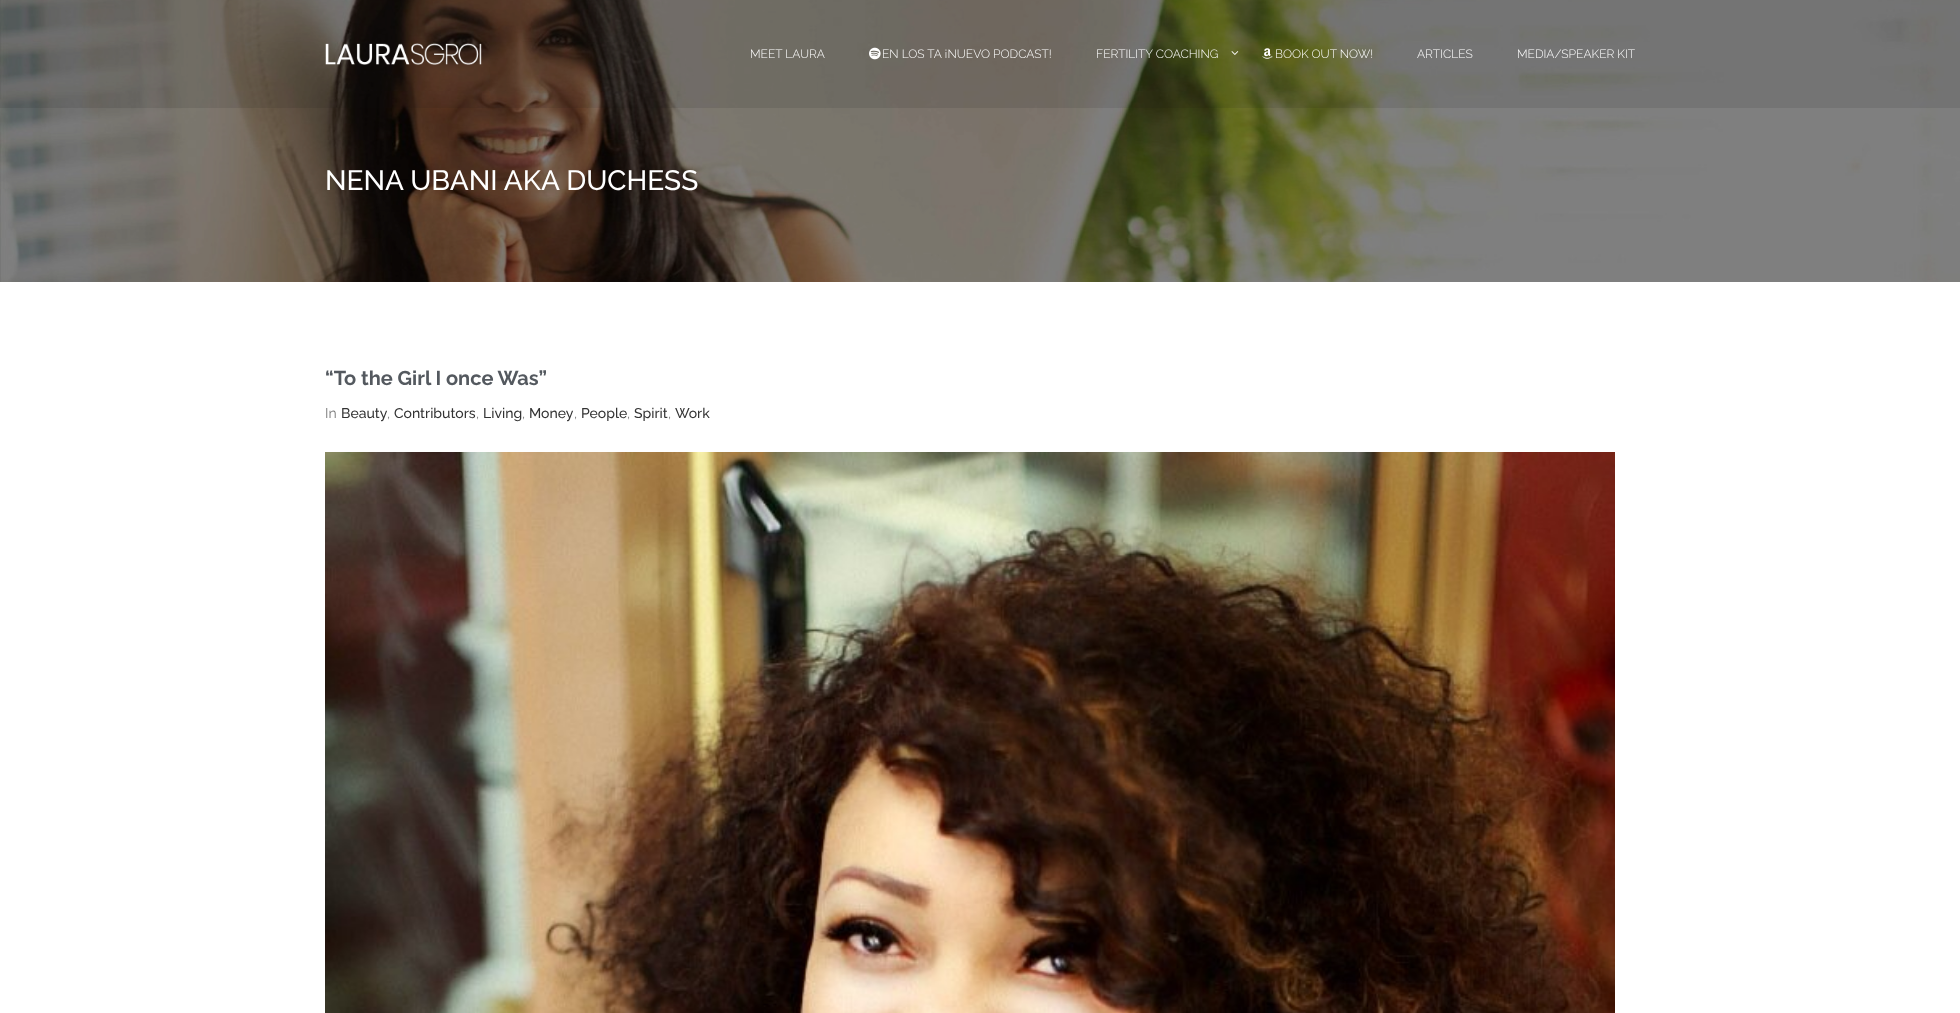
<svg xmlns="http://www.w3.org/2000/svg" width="1960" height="1013">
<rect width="100%" height="100%" fill="#fff"/>
<image x="0" y="0" width="1960" height="282" href="media/5.png"/>
<rect width="1960" height="108" fill="#1111111a"/>
<image x="325" y="43" width="157" height="22" href="media/1.png"/>
<text x="750" y="58" style="font-family:Raleway;font-size:12px;font-weight:300;fill:#fff">MEET LAURA</text>
<image x="869" y="47" width="12" height="13" href="media/2.png"/>
<text x="882" y="58" style="font-family:Raleway;font-size:12px;font-weight:300;fill:#fff">EN LOS TA ¡NUEVO PODCAST!</text>
<text x="1096" y="58" style="font-family:Raleway;font-size:12px;font-weight:300;fill:#fff">FERTILITY COACHING</text>
<image x="1231" y="51" width="8" height="4" href="media/3.png"/>
<image x="1262" y="48" width="11" height="11" href="media/4.png"/>
<text x="1275" y="58" style="font-family:Raleway;font-size:12px;font-weight:300;fill:#fff">BOOK OUT NOW!</text>
<text x="1417" y="58" style="font-family:Raleway;font-size:12px;font-weight:300;fill:#fff">ARTICLES</text>
<text x="1517" y="58" style="font-family:Raleway;font-size:12px;font-weight:300;fill:#fff">MEDIA/SPEAKER KIT</text>
<text x="325" y="190" style="font-family:Raleway;font-size:28px;font-weight:500;fill:#fff">NENA UBANI AKA DUCHESS</text>
<text x="325" y="385" style="font-family:Raleway;font-size:20px;font-weight:bold;fill:#54595f">“To the Girl I once Was”</text>
<text x="325" y="418" style="font-family:Raleway;font-size:14px;fill:#7a7a7a">In</text>
<text x="341" y="418" style="font-family:Raleway;font-size:14px;font-weight:500;fill:#333">Beauty</text>
<text x="387" y="418" style="font-family:Raleway;font-size:14px;fill:#7a7a7a">,</text>
<text x="394" y="418" style="font-family:Raleway;font-size:14px;font-weight:500;fill:#333">Contributors</text>
<text x="476" y="418" style="font-family:Raleway;font-size:14px;fill:#7a7a7a">,</text>
<text x="483" y="418" style="font-family:Raleway;font-size:14px;font-weight:500;fill:#333">Living</text>
<text x="522" y="418" style="font-family:Raleway;font-size:14px;fill:#7a7a7a">,</text>
<text x="529" y="418" style="font-family:Raleway;font-size:14px;font-weight:500;fill:#333">Money</text>
<text x="574" y="418" style="font-family:Raleway;font-size:14px;fill:#7a7a7a">,</text>
<text x="581" y="418" style="font-family:Raleway;font-size:14px;font-weight:500;fill:#333">People</text>
<text x="627" y="418" style="font-family:Raleway;font-size:14px;fill:#7a7a7a">,</text>
<text x="634" y="418" style="font-family:Raleway;font-size:14px;font-weight:500;fill:#333">Spirit</text>
<text x="668" y="418" style="font-family:Raleway;font-size:14px;fill:#7a7a7a">,</text>
<text x="675" y="418" style="font-family:Raleway;font-size:14px;font-weight:500;fill:#333">Work</text>
<image x="325" y="452" width="1290" height="561" href="media/6.png"/>
</svg>
